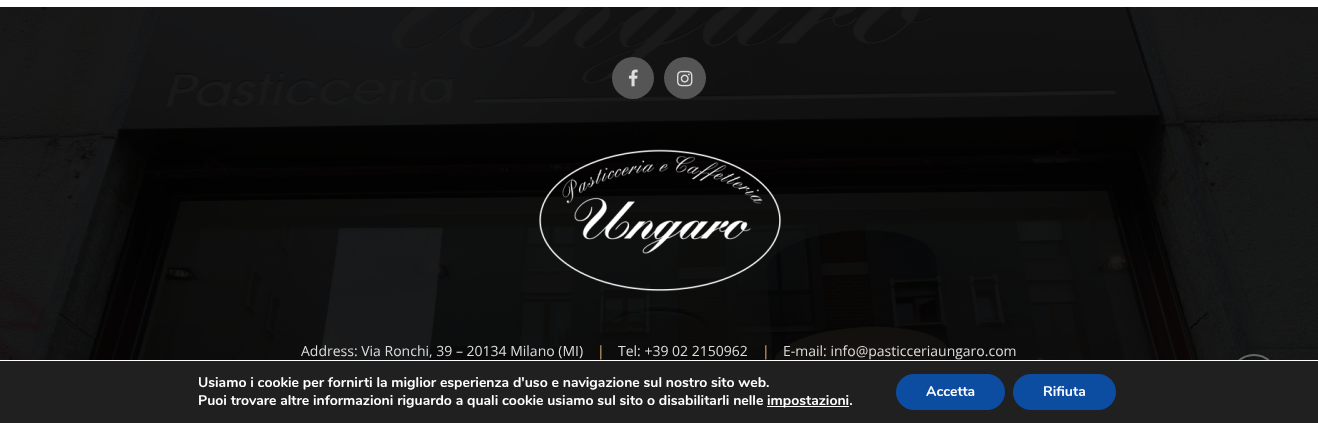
<svg xmlns="http://www.w3.org/2000/svg" width="1318" height="423">
<defs>
<clipPath id="clip1"><path d="M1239 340h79v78h-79zm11 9h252c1 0 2 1 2 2v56c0 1-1 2-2 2h-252c-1 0-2-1-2-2v-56c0-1 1-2 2-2z" clip-rule="evenodd"/></clipPath>
</defs>
<rect width="100%" height="100%" fill="#fff"/>
<image x="0" y="7" width="1318" height="353" href="media/1.png"/>
<circle cx="633" cy="78" r="21" fill="#555"/>
<image x="628" y="69" width="10" height="18" href="media/2.png"/>
<circle cx="685" cy="78" r="21" fill="#555"/>
<image x="677" y="70" width="16" height="17" href="media/3.png"/>
<image x="539" y="149" width="243" height="143" href="media/4.png"/>
<text x="301" y="356" style="font-family:Open Sans;font-size:14px;fill:#ddd">Address: Via Ronchi, 39 – 20134 Milano (MI)</text>
<text x="597" y="356" style="font-family:Open Sans;font-size:14px;fill:#ebb576">|</text>
<text x="618" y="356" style="font-family:Open Sans;font-size:14px;fill:#ddd">Tel: +39 02 2150962</text>
<text x="762" y="356" style="font-family:Open Sans;font-size:14px;fill:#ebb576">|</text>
<text x="783" y="356" style="font-family:Open Sans;font-size:14px;fill:#ddd">E-mail: info@pasticceriaungaro.com</text>
<g clip-path="url(#clip1)">
<rect x="1248" y="349" width="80" height="60" rx="2" fill="#0d0d0d" filter="blur(2.5px)"/>
</g>
<circle cx="1254" cy="378" r="23" fill="none" stroke="#ffffff59" stroke-width="2"/>
<rect y="361" width="1318" height="62" fill="#202020"/>
<rect x="1242" y="360" width="6" height="1" fill="#fff"/>
<text x="198" y="387" style="font-family:Nunito;font-size:14px;font-weight:bold;fill:#fff">Usiamo i cookie per fornirti la miglior esperienza d'uso e navigazione sul nostro sito web.</text>
<text x="198" y="405" style="font-family:Nunito;font-size:14px;font-weight:bold;fill:#fff">Puoi trovare altre informazioni riguardo a quali cookie usiamo sul sito o disabilitarli nelle</text>
<rect x="767" y="406" width="82" height="1" fill="#fff"/>
<text x="767" y="405" style="font-family:Nunito;font-size:14px;font-weight:bold;fill:#fff">impostazioni.</text>
<rect x="896" y="374" width="109" height="36" rx="18" fill="#0c4da2"/>
<text x="926" y="396" style="font-family:Nunito;font-size:14px;font-weight:bold;fill:#fff">Accetta</text>
<rect x="1013" y="374" width="103" height="36" rx="18" fill="#0c4da2"/>
<text x="1043" y="396" style="font-family:Nunito;font-size:14px;font-weight:bold;fill:#fff">Rifiuta</text>
</svg>
